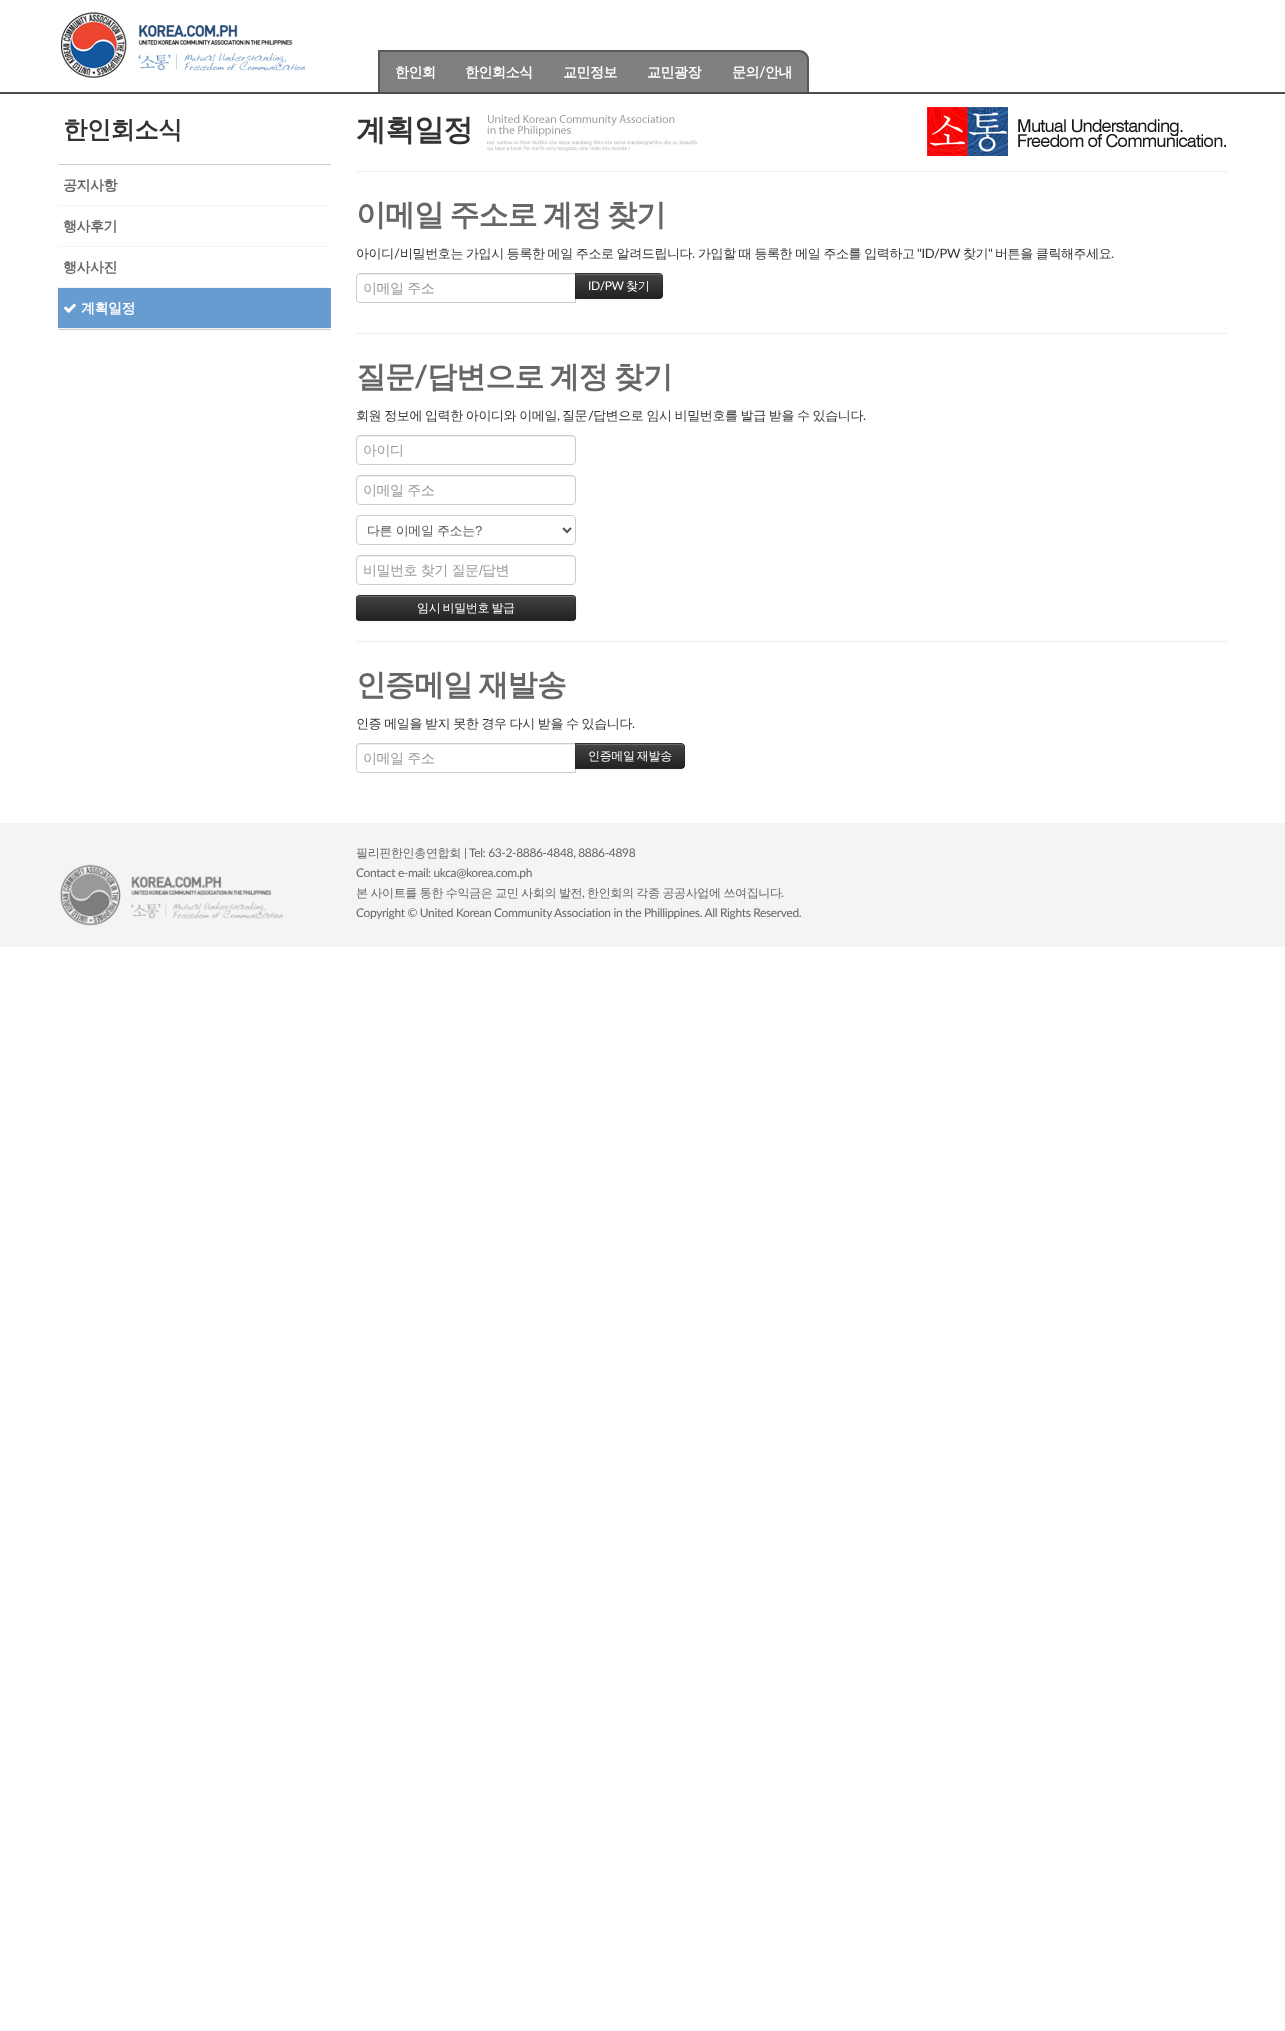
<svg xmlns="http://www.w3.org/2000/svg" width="1285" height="2031">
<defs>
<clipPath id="clip1"><path d="M575 273h84c2 0 4 2 4 4v18c0 2-2 4-4 4h-84z"/></clipPath>
<linearGradient id="g1" gradientUnits="userSpaceOnUse" x1="619" y1="274" x2="619" y2="298"><stop offset="0" stop-color="#444"/><stop offset="1" stop-color="#222"/></linearGradient>
<clipPath id="clip2"><rect x="356" y="595" width="220" height="26" rx="4"/></clipPath>
<linearGradient id="g2" gradientUnits="userSpaceOnUse" x1="466" y1="596" x2="466" y2="620"><stop offset="0" stop-color="#444"/><stop offset="1" stop-color="#222"/></linearGradient>
<clipPath id="clip3"><path d="M575 743h106c2 0 4 2 4 4v18c0 2-2 4-4 4h-106z"/></clipPath>
<linearGradient id="g3" gradientUnits="userSpaceOnUse" x1="630" y1="744" x2="630" y2="768"><stop offset="0" stop-color="#444"/><stop offset="1" stop-color="#222"/></linearGradient>
</defs>
<rect width="100%" height="100%" fill="#fff"/>
<rect y="92" width="1285" height="2" fill="#4d4d4d"/>
<image x="61" y="12" width="244" height="66" href="media/1.png"/>
<path d="M378 50h421c5.5 0 10 4.5 10 10v32h-431z" fill="#808080"/>
<path d="M378 50h421c6 0 10 4 10 10v32h-431zm2 2h419c4 0 8 4 8 8v32h-427z" fill="#0000004d" fill-rule="evenodd"/>
<text x="395" y="77" style="font-family:WenQuanYi Zen Hei;font-size:14px;font-weight:bold;letter-spacing:-0.5px;fill:#fff">한인회</text>
<text x="465" y="77" style="font-family:WenQuanYi Zen Hei;font-size:14px;font-weight:bold;letter-spacing:-0.5px;fill:#fff">한인회소식</text>
<text x="563" y="77" style="font-family:WenQuanYi Zen Hei;font-size:14px;font-weight:bold;letter-spacing:-0.5px;fill:#fff">교민정보</text>
<text x="647" y="77" style="font-family:WenQuanYi Zen Hei;font-size:14px;font-weight:bold;letter-spacing:-0.5px;fill:#fff">교민광장</text>
<text x="732" y="77" style="font-family:WenQuanYi Zen Hei;font-size:14px;font-weight:bold;letter-spacing:-0.5px;fill:#fff">문의</text>
<text x="759" y="77" style="font-family:Lato;font-size:14px;font-weight:bold;letter-spacing:-0.5px;fill:#fff">/</text>
<text x="765" y="77" style="font-family:WenQuanYi Zen Hei;font-size:14px;font-weight:bold;letter-spacing:-0.5px;fill:#fff">안내</text>
<text x="63" y="138" style="font-family:WenQuanYi Zen Hei;font-size:24.5px;font-weight:bold;letter-spacing:-0.75px;fill:#333">한인회소식</text>
<rect x="58" y="164" width="273" height="1" fill="#ccc"/>
<rect x="58" y="329" width="273" height="1" fill="#ccc"/>
<rect x="58" y="205" width="273" height="1" fill="#f4f4f4"/>
<text x="63" y="190" style="font-family:WenQuanYi Zen Hei;font-size:14px;font-weight:bold;letter-spacing:-0.5px;fill:#666">공지사항</text>
<rect x="58" y="246" width="273" height="1" fill="#f4f4f4"/>
<text x="63" y="231" style="font-family:WenQuanYi Zen Hei;font-size:14px;font-weight:bold;letter-spacing:-0.5px;fill:#666">행사후기</text>
<rect x="58" y="287" width="273" height="1" fill="#f4f4f4"/>
<text x="63" y="272" style="font-family:WenQuanYi Zen Hei;font-size:14px;font-weight:bold;letter-spacing:-0.5px;fill:#666">행사사진</text>
<rect x="58" y="288" width="273" height="40" fill="#669ccf"/>
<rect x="58" y="328" width="273" height="1" fill="#f4f4f4"/>
<image x="64" y="303" width="12" height="10" href="media/2.png"/>
<text x="81" y="313" style="font-family:WenQuanYi Zen Hei;font-size:14px;font-weight:bold;letter-spacing:-0.5px;fill:#fff">계획일정</text>
<text x="356" y="140" style="font-family:WenQuanYi Zen Hei;font-size:30px;font-weight:bold;letter-spacing:-0.9px;fill:#333">계획일정</text>
<image x="487" y="114" width="211" height="37" href="media/3.png"/>
<image x="927" y="107" width="299" height="49" href="media/4.png"/>
<rect x="356" y="171" width="871" height="1" fill="#eee"/>
<text x="356" y="225" word-spacing="-2" style="font-family:WenQuanYi Zen Hei;font-size:30px;font-weight:bold;letter-spacing:-0.9px;fill:#666">이메일 주소로 계정 찾기</text>
<text x="356" y="258" style="font-family:WenQuanYi Zen Hei;font-size:13px;font-weight:500;letter-spacing:-0.4px;fill:#333">아이디</text>
<text x="394" y="258" style="font-family:Lato;font-size:13px;letter-spacing:-0.4px;fill:#333">/</text>
<text x="400" y="258" word-spacing="-0.5" style="font-family:WenQuanYi Zen Hei;font-size:13px;font-weight:500;letter-spacing:-0.4px;fill:#333">비밀번호는 가입시 등록한 메일 주소로 알려드립니다</text>
<text x="692" y="258" style="font-family:Lato;font-size:13px;letter-spacing:-0.4px;fill:#333">.</text>
<text x="698" y="258" word-spacing="-0.5" style="font-family:WenQuanYi Zen Hei;font-size:13px;font-weight:500;letter-spacing:-0.4px;fill:#333">가입할 때 등록한 메일 주소를 입력하고</text>
<text x="917" y="258" style="font-family:Lato;font-size:13px;letter-spacing:-0.4px;fill:#333">"ID/PW</text>
<text x="963" y="258" style="font-family:WenQuanYi Zen Hei;font-size:13px;font-weight:500;letter-spacing:-0.4px;fill:#333">찾기</text>
<text x="988" y="258" style="font-family:Lato;font-size:13px;letter-spacing:-0.4px;fill:#333">"</text>
<text x="995" y="258" word-spacing="-0.5" style="font-family:WenQuanYi Zen Hei;font-size:13px;font-weight:500;letter-spacing:-0.4px;fill:#333">버튼을 클릭해주세요</text>
<text x="1111" y="258" style="font-family:Lato;font-size:13px;letter-spacing:-0.4px;fill:#333">.</text>
<path d="M360 275h215v-1h-215c-2 0-3 1-3 3v1c0-2 1-3 3-3z" fill="#ececec"/>
<path d="M360 273.5h215.5v29h-215.5c-2 0-3.5-1.5-3.5-3.5v-22c0-2 1.5-3.5 3.5-3.5z" fill="none" stroke="#ccc"/>
<text x="363" y="293" style="font-family:WenQuanYi Zen Hei;font-size:14px;font-weight:500;letter-spacing:-0.5px;fill:#999">이메일 주소</text>
<rect x="575" y="274" width="88" height="26" rx="4" fill="#0000000d" filter="blur(1px)"/>
<path d="M575 273h84c2 0 4 2 4 4v18c0 2-2 4-4 4h-84z" fill="#363636"/>
<g clip-path="url(#clip1)">
<rect x="575" y="274" width="88" height="24" fill="url(#g1)"/>
</g>
<path d="M576 275h83c2 0 3 1 3 3v-1c0-2-1-3-3-3h-83z" fill="#696969"/>
<path d="M575 273l1 1h83l2 1l1-1l-3-1z" fill="#0000001a"/>
<path d="M663 295v-18c0-1-.5-2-1-3l-1 1c2 1.5 1 9 1 11c0 2 1 9.5-1 11l1 1c.5-1 1-2 1-3z" fill="#0000001a"/>
<path d="M659 299l3-1l-1-1l-2 1h-83l-1 1z" fill="#00000040"/>
<path d="M575 273v26l1-1v-24z" fill="#0000001a"/>
<text x="588" y="290" style="font-family:Lato;font-size:12px;letter-spacing:-0.35px;fill:#fff">ID/PW</text>
<text x="626" y="290" style="font-family:WenQuanYi Zen Hei;font-size:12px;font-weight:500;letter-spacing:-0.35px;fill:#fff">찾기</text>
<rect x="356" y="333" width="871" height="1" fill="#eee"/>
<text x="356" y="387" style="font-family:WenQuanYi Zen Hei;font-size:30px;font-weight:bold;letter-spacing:-0.9px;fill:#666">질문</text>
<text x="414" y="387" style="font-family:Lato;font-size:30px;font-weight:bold;letter-spacing:-0.9px;fill:#666">/</text>
<text x="427" y="387" word-spacing="-2" style="font-family:WenQuanYi Zen Hei;font-size:30px;font-weight:bold;letter-spacing:-0.9px;fill:#666">답변으로 계정 찾기</text>
<text x="356" y="420" word-spacing="-0.5" style="font-family:WenQuanYi Zen Hei;font-size:13px;font-weight:500;letter-spacing:-0.4px;fill:#333">회원 정보에 입력한 아이디와 이메일</text>
<text x="557" y="420" style="font-family:Lato;font-size:13px;letter-spacing:-0.4px;fill:#333">,</text>
<text x="562" y="420" style="font-family:WenQuanYi Zen Hei;font-size:13px;font-weight:500;letter-spacing:-0.4px;fill:#333">질문</text>
<text x="588" y="420" style="font-family:Lato;font-size:13px;letter-spacing:-0.4px;fill:#333">/</text>
<text x="593" y="420" word-spacing="-0.5" style="font-family:WenQuanYi Zen Hei;font-size:13px;font-weight:500;letter-spacing:-0.4px;fill:#333">답변으로 임시 비밀번호를 발급 받을 수 있습니다</text>
<text x="863" y="420" style="font-family:Lato;font-size:13px;letter-spacing:-0.4px;fill:#333">.</text>
<path d="M360 437h212c2 0 3 1 3 3v-1c0-2-1-3-3-3h-212c-2 0-3 1-3 3v1c0-2 1-3 3-3z" fill="#ececec"/>
<rect x="356.5" y="435.5" width="219" height="29" rx="3.5" fill="none" stroke="#ccc"/>
<text x="363" y="455" style="font-family:WenQuanYi Zen Hei;font-size:14px;font-weight:500;letter-spacing:-0.5px;fill:#999">아이디</text>
<path d="M360 477h212c2 0 3 1 3 3v-1c0-2-1-3-3-3h-212c-2 0-3 1-3 3v1c0-2 1-3 3-3z" fill="#ececec"/>
<rect x="356.5" y="475.5" width="219" height="29" rx="3.5" fill="none" stroke="#ccc"/>
<text x="363" y="495" style="font-family:WenQuanYi Zen Hei;font-size:14px;font-weight:500;letter-spacing:-0.5px;fill:#999">이메일 주소</text>
<rect x="356.5" y="515.5" width="219" height="29" rx="3.5" fill="none" stroke="#ccc"/>
<path d="M563 528l4 4l4-4" fill="none" stroke="#555" stroke-width="2"/>
<text x="367" y="535" style="font-family:WenQuanYi Zen Hei;font-size:13px;font-weight:500;letter-spacing:-0.4px;fill:#555">다른 이메일 주소는</text>
<text x="475" y="535" style="font-family:Liberation Sans;font-size:13px;letter-spacing:-0.4px;fill:#555">?</text>
<path d="M360 557h212c2 0 3 1 3 3v-1c0-2-1-3-3-3h-212c-2 0-3 1-3 3v1c0-2 1-3 3-3z" fill="#ececec"/>
<rect x="356.5" y="555.5" width="219" height="29" rx="3.5" fill="none" stroke="#ccc"/>
<text x="363" y="575" style="font-family:WenQuanYi Zen Hei;font-size:14px;font-weight:500;letter-spacing:-0.5px;fill:#999">비밀번호 찾기 질문</text>
<text x="479" y="575" style="font-family:Liberation Sans;font-size:14px;letter-spacing:-0.5px;fill:#999">/</text>
<text x="482" y="575" style="font-family:WenQuanYi Zen Hei;font-size:14px;font-weight:500;letter-spacing:-0.5px;fill:#999">답변</text>
<rect x="356" y="596" width="220" height="26" rx="4" fill="#0000000d" filter="blur(1px)"/>
<rect x="356" y="595" width="220" height="26" rx="4" fill="#363636"/>
<g clip-path="url(#clip2)">
<rect x="356" y="596" width="220" height="24" fill="url(#g2)"/>
</g>
<path d="M360 597h212c2 0 3 1 3 3v-1c0-2-1-3-3-3h-212c-2 0-3 1-3 3v1c0-2 1-3 3-3z" fill="#696969"/>
<path d="M574.5 619.5c-.5 .5-1.5 1-2.5 1h-212c-1 0-2-.5-2.5-1" fill="none" stroke="#00000040"/>
<path d="M357.5 619.5c-2-2-1-14-1-17.5c0-2.5 0-6.5 3.5-6.5h212c3.5 0 3.5 4 3.5 6.5c0 3.5 1 15.5-1 17.5" fill="none" stroke="#0000001a"/>
<text x="417" y="612" word-spacing="-1" style="font-family:WenQuanYi Zen Hei;font-size:12px;font-weight:500;letter-spacing:-0.35px;fill:#fff">임시 비밀번호 발급</text>
<rect x="356" y="641" width="871" height="1" fill="#eee"/>
<text x="356" y="695" word-spacing="-2" style="font-family:WenQuanYi Zen Hei;font-size:30px;font-weight:bold;letter-spacing:-0.9px;fill:#666">인증메일 재발송</text>
<text x="356" y="728" word-spacing="-0.5" style="font-family:WenQuanYi Zen Hei;font-size:13px;font-weight:500;letter-spacing:-0.4px;fill:#333">인증 메일을 받지 못한 경우 다시 받을 수 있습니다</text>
<text x="632" y="728" style="font-family:Lato;font-size:13px;letter-spacing:-0.4px;fill:#333">.</text>
<path d="M360 745h215v-1h-215c-2 0-3 1-3 3v1c0-2 1-3 3-3z" fill="#ececec"/>
<path d="M360 743.5h215.5v29h-215.5c-2 0-3.5-1.5-3.5-3.5v-22c0-2 1.5-3.5 3.5-3.5z" fill="none" stroke="#ccc"/>
<text x="363" y="763" style="font-family:WenQuanYi Zen Hei;font-size:14px;font-weight:500;letter-spacing:-0.5px;fill:#999">이메일 주소</text>
<rect x="575" y="744" width="110" height="26" rx="4" fill="#0000000d" filter="blur(1px)"/>
<path d="M575 743h106c2 0 4 2 4 4v18c0 2-2 4-4 4h-106z" fill="#363636"/>
<g clip-path="url(#clip3)">
<rect x="575" y="744" width="110" height="24" fill="url(#g3)"/>
</g>
<path d="M576 745h105c2 0 3 1 3 3v-1c0-2-1-3-3-3h-105z" fill="#696969"/>
<path d="M575 743l1 1h105l2 1l1-1l-3-1z" fill="#0000001a"/>
<path d="M685 765v-18c0-1-.5-2-1-3l-1 1c2 1.5 1 9 1 11c0 2 1 9.5-1 11l1 1c.5-1 1-2 1-3z" fill="#0000001a"/>
<path d="M681 769l3-1l-1-1l-2 1h-105l-1 1z" fill="#00000040"/>
<path d="M575 743v26l1-1v-24z" fill="#0000001a"/>
<text x="588" y="760" word-spacing="-1" style="font-family:WenQuanYi Zen Hei;font-size:12px;font-weight:500;letter-spacing:-0.35px;fill:#fff">인증메일 재발송</text>
<rect y="823" width="1285" height="124" fill="#f4f4f4"/>
<image x="60" y="864" width="223" height="62" href="media/5.png"/>
<text x="356" y="857" style="font-family:WenQuanYi Zen Hei;font-size:12px;font-weight:500;letter-spacing:-0.35px;fill:#666">필리핀한인총연합회</text>
<text x="464" y="857" style="font-family:Lato;font-size:12px;letter-spacing:-0.35px;fill:#666">| Tel: 63-2-8886-4848, 8886-4898</text>
<text x="356" y="877" style="font-family:Lato;font-size:12px;letter-spacing:-0.35px;fill:#666">Contact e-mail: ukca@korea.com.ph</text>
<text x="356" y="897" word-spacing="-0.5" style="font-family:WenQuanYi Zen Hei;font-size:12px;font-weight:500;letter-spacing:-0.35px;fill:#666">본 사이트를 통한 수익금은 교민 사회의 발전</text>
<text x="582" y="897" style="font-family:Lato;font-size:12px;letter-spacing:-0.35px;fill:#666">,</text>
<text x="587" y="897" word-spacing="-0.5" style="font-family:WenQuanYi Zen Hei;font-size:12px;font-weight:500;letter-spacing:-0.35px;fill:#666">한인회의 각종 공공사업에 쓰여집니다</text>
<text x="781" y="897" style="font-family:Lato;font-size:12px;letter-spacing:-0.35px;fill:#666">.</text>
<text x="356" y="917" style="font-family:Lato;font-size:12px;letter-spacing:-0.35px;fill:#666">Copyright © United Korean Community Association in the Phillippines. All Rights Reserved.</text>
</svg>
